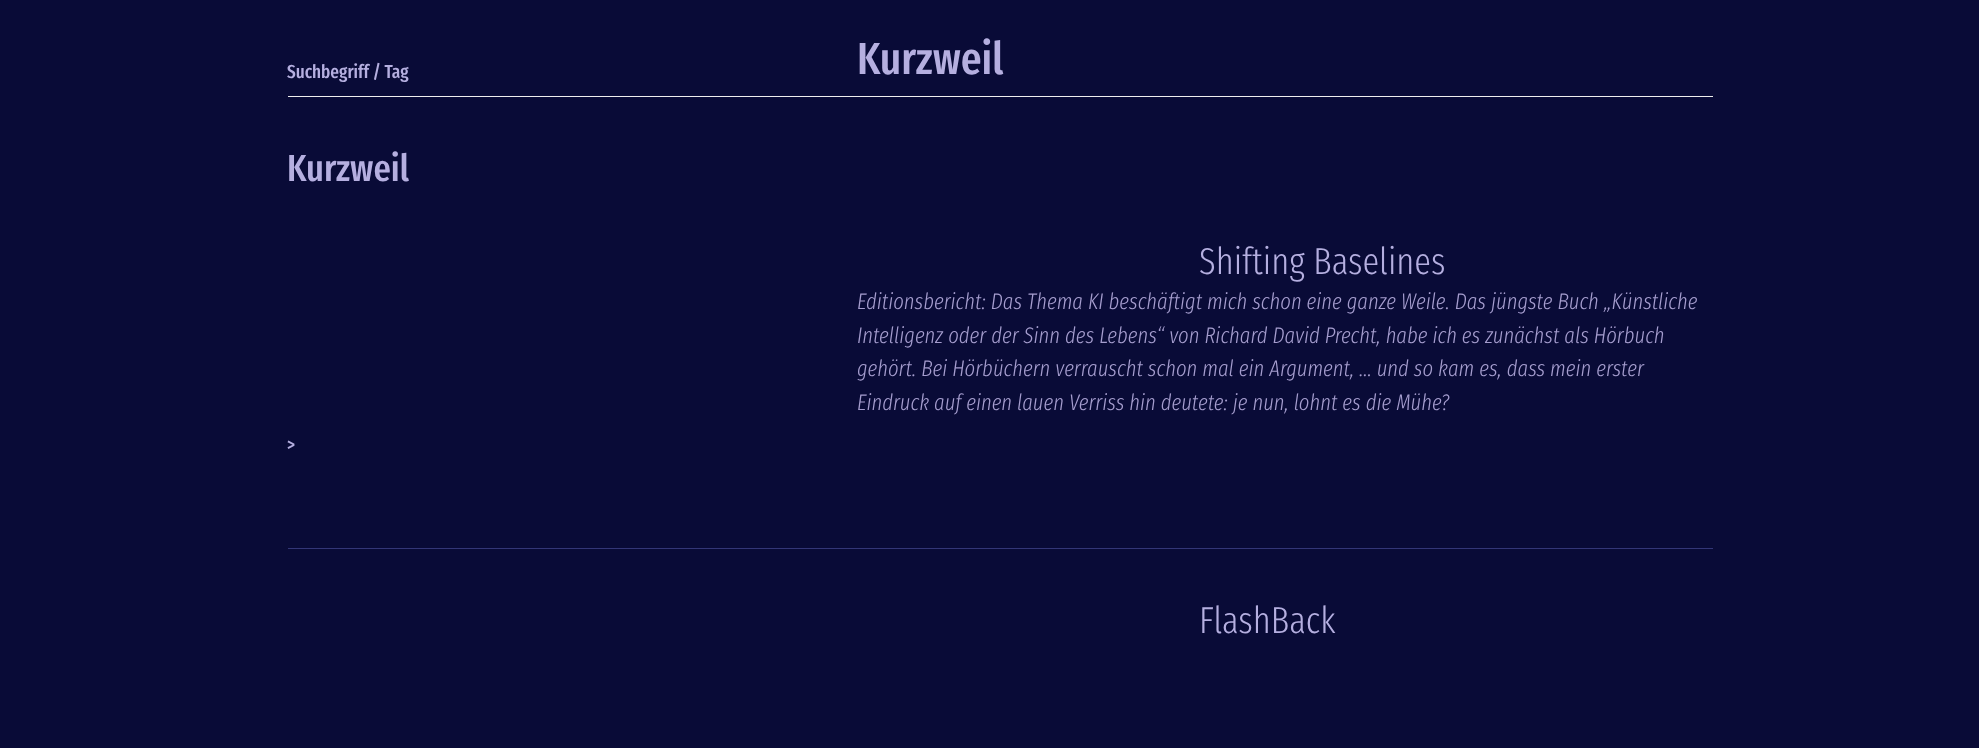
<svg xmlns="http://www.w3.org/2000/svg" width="1979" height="748">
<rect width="100%" height="100%" fill="#090b37"/>
<rect x="288" y="96" width="1425" height="1" fill="#eee"/>
<text x="857" y="74" style="font-family:Fira Sans Extra Condensed;font-size:45px;font-weight:500;fill:#b5afe0">Kurzweil</text>
<text x="287" y="78" style="font-family:Fira Sans Extra Condensed;font-size:18.75px;font-weight:500;fill:#b5afe0">Suchbegriff / Tag</text>
<text x="287" y="181" style="font-family:Fira Sans Extra Condensed;font-size:37.5px;font-weight:500;fill:#b5afe0">Kurzweil</text>
<rect x="288" y="548" width="1425" height="1" fill="#333677"/>
<text x="1199" y="274" style="font-family:Fira Sans Extra Condensed;font-size:37.5px;font-weight:300;fill:#b5afe0">Shifting Baselines</text>
<text x="857" y="309" style="font-family:Fira Sans Extra Condensed;font-size:22.5px;font-weight:300;font-style:italic;fill:#a59dce">Editionsbericht: Das Thema KI beschäftigt mich schon eine ganze Weile. Das jüngste Buch „Künstliche</text>
<text x="857" y="343" style="font-family:Fira Sans Extra Condensed;font-size:22.5px;font-weight:300;font-style:italic;fill:#a59dce">Intelligenz oder der Sinn des Lebens“ von Richard David Precht, habe ich es zunächst als Hörbuch</text>
<text x="857" y="376" style="font-family:Fira Sans Extra Condensed;font-size:22.5px;font-weight:300;font-style:italic;fill:#a59dce">gehört. Bei Hörbüchern verrauscht schon mal ein Argument, … und so kam es, dass mein erster</text>
<text x="857" y="410" style="font-family:Fira Sans Extra Condensed;font-size:22.5px;font-weight:300;font-style:italic;fill:#a59dce">Eindruck auf einen lauen Verriss hin deutete: je nun, lohnt es die Mühe?</text>
<text x="287" y="451" style="font-family:Fira Sans Extra Condensed;font-size:18.75px;font-weight:500;fill:#b5afe0">&gt;</text>
<text x="1199" y="633" style="font-family:Fira Sans Extra Condensed;font-size:37.5px;font-weight:300;fill:#b5afe0">FlashBack</text>
</svg>
